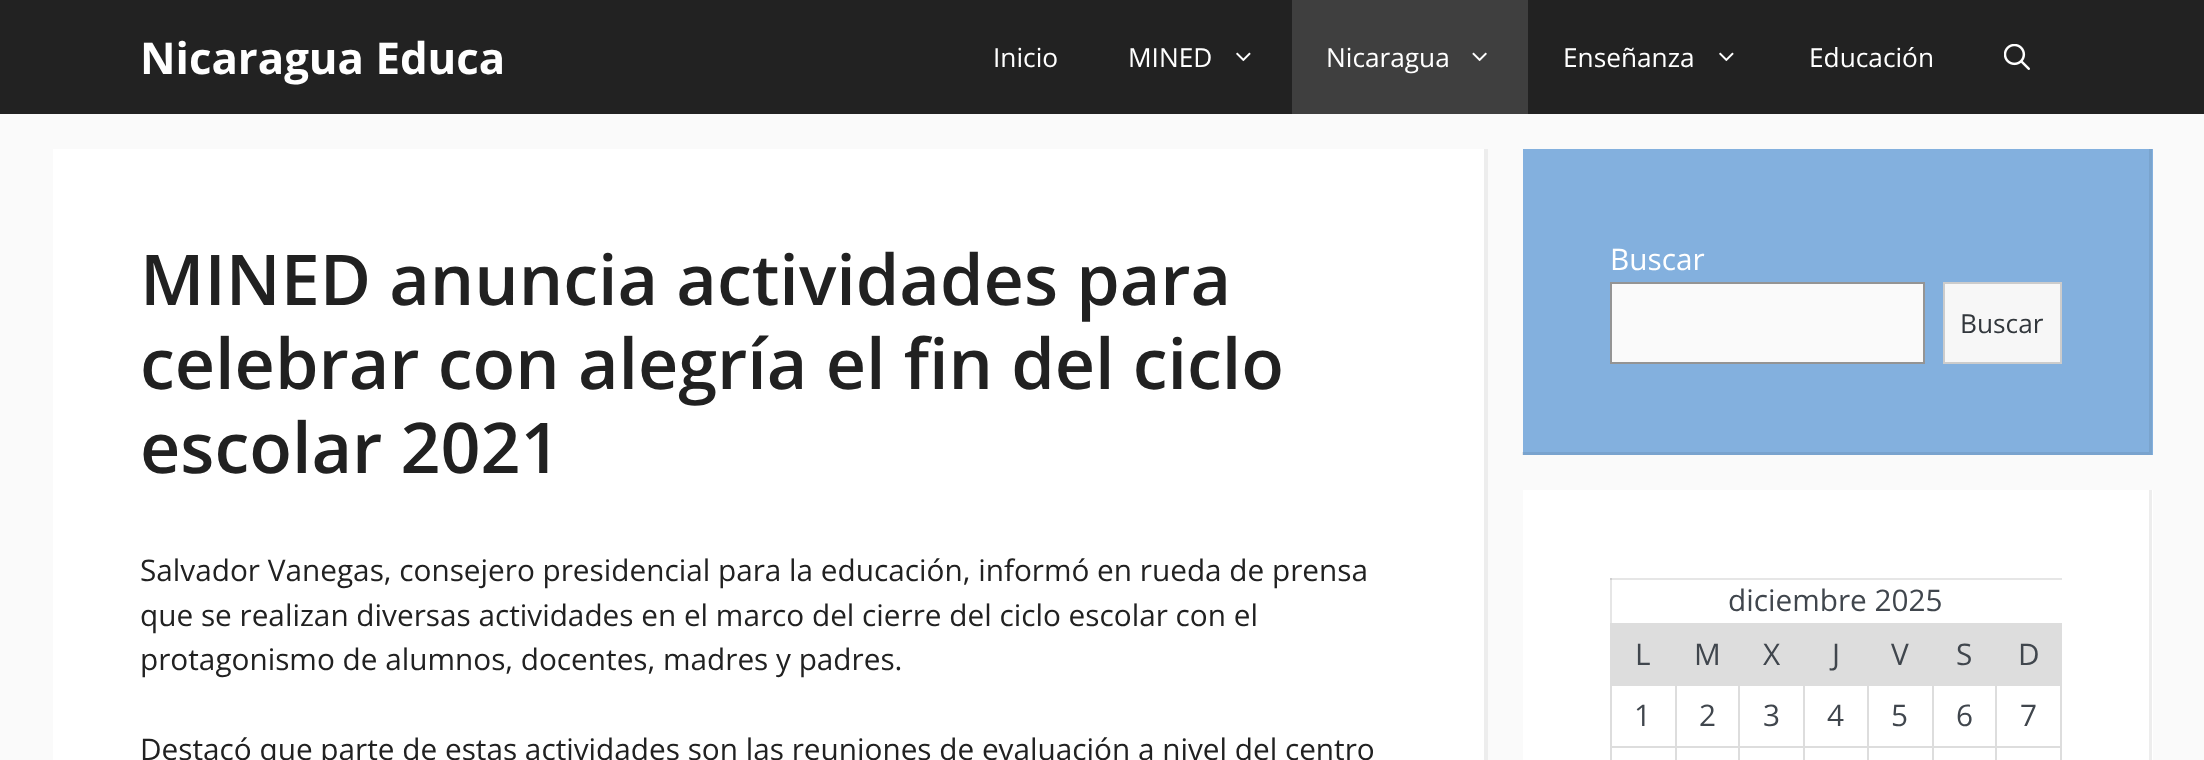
<svg xmlns="http://www.w3.org/2000/svg" width="2204" height="760">
<rect width="100%" height="100%" fill="#fafafa"/>
<rect width="2204" height="114" fill="#222"/>
<text x="140" y="74" style="font-family:Open Sans;font-size:43.75px;font-weight:bold;fill:#fff">Nicaragua Educa</text>
<text x="993" y="67" style="font-family:Open Sans;font-size:26.25px;fill:#fff">Inicio</text>
<text x="1128" y="67" style="font-family:Open Sans;font-size:26.25px;fill:#fff">MINED</text>
<image x="1236" y="52" width="15" height="10" href="media/1.png"/>
<rect x="1292" width="236" height="114" fill="#3f3f3f"/>
<text x="1326" y="67" style="font-family:Open Sans;font-size:26.25px;fill:#fff">Nicaragua</text>
<image x="1472" y="52" width="15" height="10" href="media/2.png"/>
<text x="1563" y="67" style="font-family:Open Sans;font-size:26.25px;fill:#fff">Enseñanza</text>
<image x="1719" y="52" width="15" height="10" href="media/1.png"/>
<text x="1809" y="67" style="font-family:Open Sans;font-size:26.25px;fill:#fff">Educación</text>
<image x="2004" y="44" width="26" height="26" href="media/3.png"/>
<rect x="53" y="149" width="1431" height="611" fill="#fff"/>
<path d="M1488 149v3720l-4-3v-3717z" fill="#ededed"/>
<text x="140" y="305" style="font-family:Open Sans;font-size:70px;font-weight:600;fill:#212121">MINED anuncia actividades para</text>
<text x="140" y="389" style="font-family:Open Sans;font-size:70px;font-weight:600;fill:#212121">celebrar con alegría el fin del ciclo</text>
<text x="140" y="473" style="font-family:Open Sans;font-size:70px;font-weight:600;fill:#212121">escolar 2021</text>
<text x="140" y="581" style="font-family:Open Sans;font-size:29.75px;fill:#212121">Salvador Vanegas, consejero presidencial para la educación, informó en rueda de prensa</text>
<text x="140" y="626" style="font-family:Open Sans;font-size:29.75px;fill:#212121">que se realizan diversas actividades en el marco del cierre del ciclo escolar con el</text>
<text x="140" y="670" style="font-family:Open Sans;font-size:29.75px;fill:#212121">protagonismo de alumnos, docentes, madres y padres.</text>
<text x="140" y="760" style="font-family:Open Sans;font-size:29.75px;fill:#212121">Destacó que parte de estas actividades son las reuniones de evaluación a nivel del centro</text>
<rect x="1523" y="149" width="630" height="306" fill="#83b0de"/>
<path d="M2152 149v306l-3-3v-303z" fill="#7aa4ce"/>
<path d="M2152 455h-630v-3h627z" fill="#00000012"/>
<text x="1610" y="270" style="font-family:Open Sans;font-size:29.75px;fill:#fff">Buscar</text>
<rect x="1611" y="283" width="313" height="80" fill="#fafafa" stroke="#949494" stroke-width="2"/>
<rect x="1944" y="283" width="117" height="80" fill="#f7f7f7" stroke="#ccc" stroke-width="2"/>
<text x="1960" y="333" style="font-family:Open Sans;font-size:26.25px;fill:#32373c">Buscar</text>
<rect x="1523" y="490" width="630" height="270" fill="#fff"/>
<rect x="1610" y="578" width="2" height="45" fill="#e6e6e6"/>
<path d="M2152 490v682l-3-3v-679z" fill="#ededed"/>
<rect x="1610" y="578" width="452" height="2" fill="#e6e6e6"/>
<rect x="1610" y="578" width="2" height="2" fill="#cfcfcf"/>
<text x="1728" y="611" style="font-family:Open Sans;font-size:29.75px;fill:#40464d">diciembre 2025</text>
<rect x="1612" y="625" width="63" height="59" fill="#ddd"/>
<rect x="1675" y="623" width="387" height="61" fill="#ddd"/>
<rect x="1610" y="623" width="67" height="2" fill="#ddd"/>
<rect x="1995" y="684" width="67" height="2" fill="#ddd"/>
<rect x="1995" y="746" width="67" height="2" fill="#ddd"/>
<rect x="1995" y="746" width="2" height="14" fill="#ddd"/>
<rect x="1932" y="746" width="65" height="2" fill="#ddd"/>
<rect x="1995" y="684" width="2" height="63" fill="#ddd"/>
<rect x="1932" y="684" width="65" height="2" fill="#ddd"/>
<rect x="1932" y="746" width="2" height="14" fill="#ddd"/>
<rect x="1867" y="746" width="67" height="2" fill="#ddd"/>
<rect x="1932" y="684" width="2" height="63" fill="#ddd"/>
<rect x="1867" y="684" width="67" height="2" fill="#ddd"/>
<rect x="1867" y="746" width="2" height="14" fill="#ddd"/>
<rect x="1803" y="746" width="66" height="2" fill="#ddd"/>
<rect x="1867" y="684" width="2" height="63" fill="#ddd"/>
<rect x="1803" y="684" width="66" height="2" fill="#ddd"/>
<rect x="1803" y="746" width="2" height="14" fill="#ddd"/>
<rect x="1738" y="746" width="66" height="2" fill="#ddd"/>
<rect x="1803" y="684" width="2" height="63" fill="#ddd"/>
<rect x="1738" y="684" width="66" height="2" fill="#ddd"/>
<rect x="1738" y="746" width="2" height="14" fill="#ddd"/>
<rect x="1675" y="746" width="65" height="2" fill="#ddd"/>
<rect x="1738" y="684" width="2" height="63" fill="#ddd"/>
<rect x="1675" y="684" width="65" height="2" fill="#ddd"/>
<rect x="1675" y="746" width="2" height="14" fill="#ddd"/>
<rect x="1610" y="746" width="67" height="2" fill="#ddd"/>
<rect x="1675" y="684" width="2" height="63" fill="#ddd"/>
<rect x="1610" y="684" width="67" height="2" fill="#ddd"/>
<rect x="1610" y="746" width="2" height="14" fill="#ddd"/>
<rect x="1610" y="684" width="2" height="63" fill="#ddd"/>
<rect x="1610" y="623" width="2" height="63" fill="#ddd"/>
<text x="1635" y="665" style="font-family:Open Sans;font-size:29.75px;fill:#40464d">L</text>
<text x="1694" y="665" style="font-family:Open Sans;font-size:29.75px;fill:#40464d">M</text>
<text x="1763" y="665" style="font-family:Open Sans;font-size:29.75px;fill:#40464d">X</text>
<text x="1832" y="665" style="font-family:Open Sans;font-size:29.75px;fill:#40464d">J</text>
<text x="1891" y="665" style="font-family:Open Sans;font-size:29.75px;fill:#40464d">V</text>
<text x="1956" y="665" style="font-family:Open Sans;font-size:29.75px;fill:#40464d">S</text>
<text x="2018" y="665" style="font-family:Open Sans;font-size:29.75px;fill:#40464d">D</text>
<text x="1634" y="726" style="font-family:Open Sans;font-size:29.75px;fill:#40464d">1</text>
<text x="1699" y="726" style="font-family:Open Sans;font-size:29.75px;fill:#40464d">2</text>
<text x="1763" y="726" style="font-family:Open Sans;font-size:29.75px;fill:#40464d">3</text>
<text x="1827" y="726" style="font-family:Open Sans;font-size:29.75px;fill:#40464d">4</text>
<text x="1891" y="726" style="font-family:Open Sans;font-size:29.75px;fill:#40464d">5</text>
<text x="1956" y="726" style="font-family:Open Sans;font-size:29.75px;fill:#40464d">6</text>
<rect x="2060" y="746" width="2" height="14" fill="#ddd"/>
<rect x="2060" y="684" width="2" height="63" fill="#ddd"/>
<text x="2020" y="726" style="font-family:Open Sans;font-size:29.75px;fill:#40464d">7</text>
</svg>
